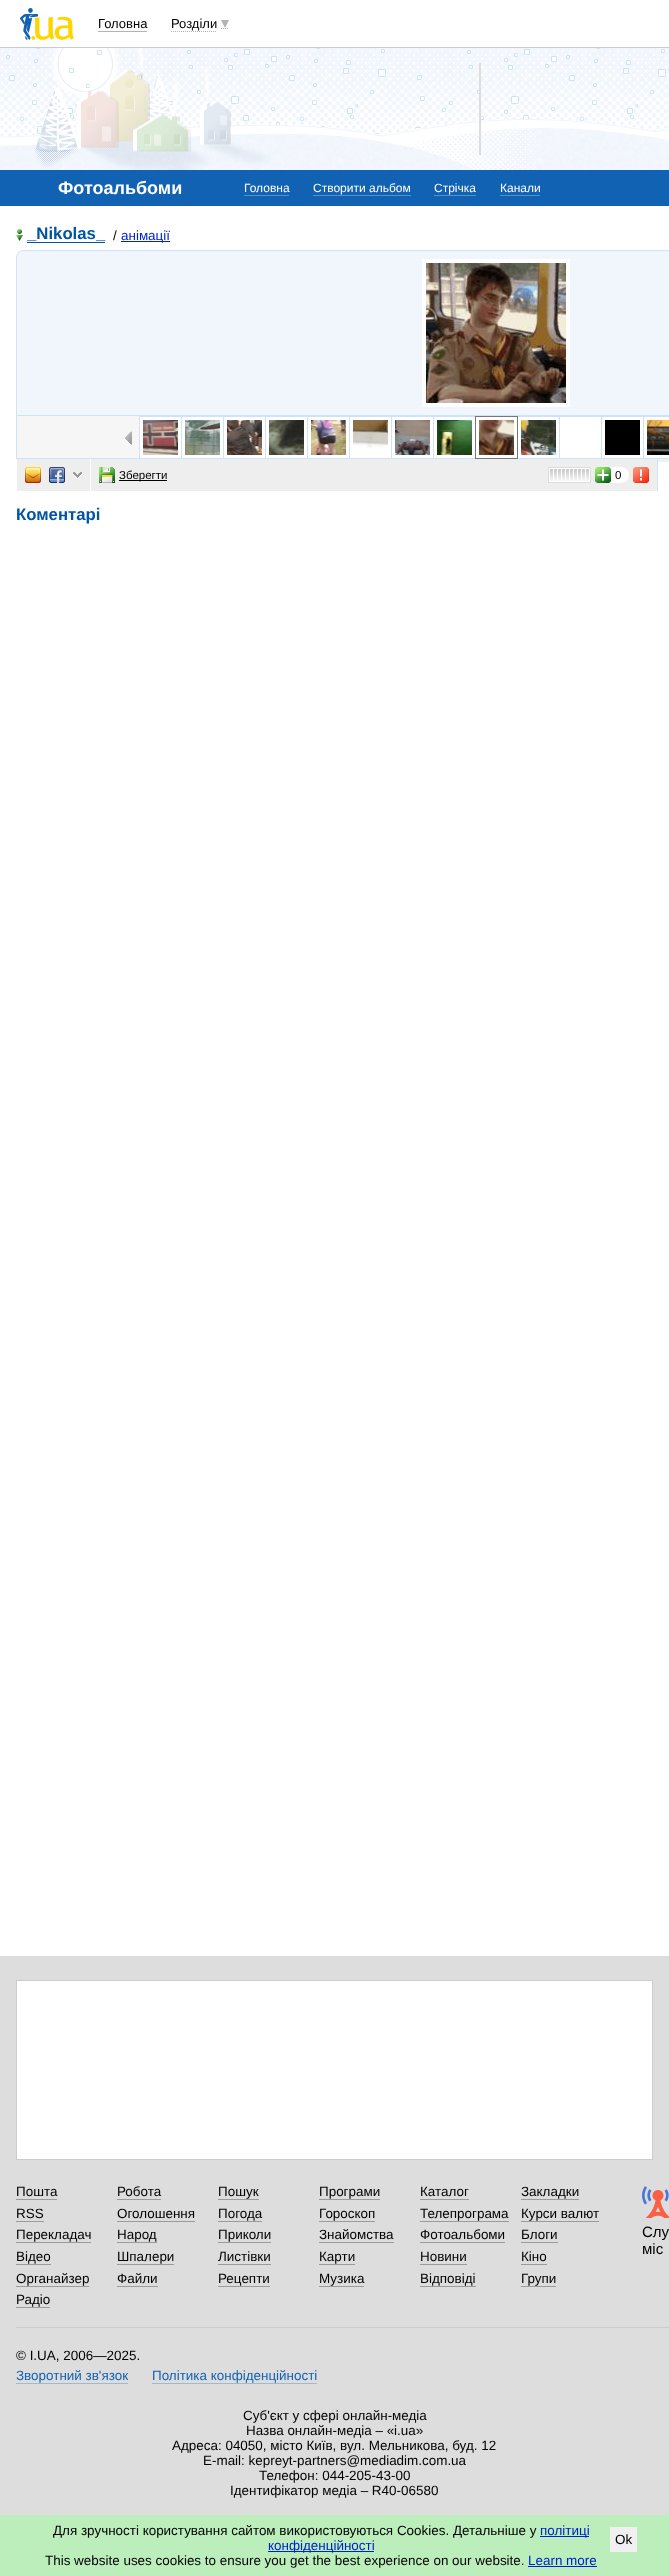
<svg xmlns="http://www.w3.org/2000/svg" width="669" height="2576">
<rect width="100%" height="100%" fill="#fff"/>
<rect y="47" width="669" height="1" fill="#ccc"/>
<image x="20" y="8" width="54" height="32" href="media/1.png"/>
<text x="98" y="28" style="font-family:Liberation Sans;font-size:13px;fill:#000">Головна</text>
<rect x="98" y="31" width="49" height="1" fill="#b3b3b3"/>
<path d="M171 31.5h46m4-3h8" fill="none" stroke="#b3b3b3" stroke-dasharray="1 1"/>
<text x="171" y="28" style="font-family:Liberation Sans;font-size:13px;fill:#000">Розділи</text>
<path d="M221 20h8l-4 8z" fill="#b3b3b3"/>
<image x="0" y="48" width="669" height="122" href="media/2.png"/>
<rect x="479" y="63" width="2" height="92" fill="#ddd"/>
<rect y="170" width="669" height="36" fill="#1162b3"/>
<text x="58" y="194" style="font-family:Liberation Sans;font-size:18px;font-weight:bold;fill:#fff">Фотоальбоми</text>
<text x="244" y="192" style="font-family:Liberation Sans;font-size:12px;fill:#fff">Головна</text>
<rect x="244" y="195" width="45" height="1" fill="#5891ca"/>
<text x="313" y="192" style="font-family:Liberation Sans;font-size:12px;fill:#fff">Створити альбом</text>
<rect x="313" y="195" width="98" height="1" fill="#5891ca"/>
<text x="434" y="192" style="font-family:Liberation Sans;font-size:12px;fill:#fff">Стрічка</text>
<rect x="434" y="195" width="42" height="1" fill="#5891ca"/>
<text x="500" y="192" style="font-family:Liberation Sans;font-size:12px;fill:#fff">Канали</text>
<rect x="500" y="195" width="40" height="1" fill="#5891ca"/>
<rect x="27" y="242" width="78" height="1" fill="#0053a5"/>
<image x="16" y="229" width="7" height="12" href="media/3.png"/>
<text x="27" y="239" style="font-family:Liberation Sans;font-size:16.75px;font-weight:bold;fill:#0053a5">_Nikolas_</text>
<text x="113" y="240" style="font-family:Liberation Sans;font-size:13.45px;fill:#000">/</text>
<rect x="121" y="241" width="49" height="1" fill="#02c"/>
<text x="121" y="240" style="font-family:Liberation Sans;font-size:13.45px;fill:#02c">анімації</text>
<rect x="658" y="459" width="11" height="3" fill="#f0f0f0"/>
<rect x="17" y="251" width="652" height="164" fill="#f0f6fc"/>
<rect x="16.5" y="250.5" width="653" height="208" fill="none" stroke="#cee3f7"/>
<rect x="424" y="261" width="144" height="144" fill="none" stroke="#fff" stroke-width="4"/>
<image x="426" y="263" width="140" height="140" href="media/4.png"/>
<rect x="17" y="416" width="122" height="42" fill="#f6f6f6"/>
<rect x="17" y="415" width="652" height="1" fill="#cee3f7"/>
<image x="125" y="431" width="7" height="14" href="media/5.png"/>
<rect x="139.5" y="416.5" width="42" height="42" fill="none" stroke="#cee3f7"/>
<image x="143" y="420" width="35" height="35" href="media/6.png"/>
<rect x="181.5" y="416.5" width="42" height="42" fill="none" stroke="#cee3f7"/>
<image x="185" y="420" width="35" height="35" href="media/7.png"/>
<rect x="223.5" y="416.5" width="42" height="42" fill="none" stroke="#cee3f7"/>
<image x="227" y="420" width="35" height="35" href="media/8.png"/>
<rect x="265.5" y="416.5" width="42" height="42" fill="none" stroke="#cee3f7"/>
<image x="269" y="420" width="35" height="35" href="media/9.png"/>
<rect x="307.5" y="416.5" width="42" height="42" fill="none" stroke="#cee3f7"/>
<image x="311" y="420" width="35" height="35" href="media/10.png"/>
<rect x="349.5" y="416.5" width="42" height="42" fill="none" stroke="#cee3f7"/>
<image x="353" y="420" width="35" height="28" href="media/11.png"/>
<rect x="391.5" y="416.5" width="42" height="42" fill="none" stroke="#cee3f7"/>
<image x="395" y="420" width="35" height="35" href="media/12.png"/>
<rect x="433.5" y="416.5" width="42" height="42" fill="none" stroke="#cee3f7"/>
<image x="437" y="420" width="35" height="35" href="media/13.png"/>
<rect x="517.5" y="416.5" width="42" height="42" fill="none" stroke="#cee3f7"/>
<rect x="475.5" y="416.5" width="42" height="42" fill="none" stroke="#777"/>
<image x="479" y="420" width="35" height="35" href="media/14.png"/>
<image x="521" y="420" width="35" height="35" href="media/15.png"/>
<rect x="559.5" y="416.5" width="42" height="42" fill="none" stroke="#cee3f7"/>
<rect x="601.5" y="416.5" width="42" height="42" fill="none" stroke="#cee3f7"/>
<rect x="605" y="420" width="35" height="35" fill="#000"/>
<rect x="643.5" y="416.5" width="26" height="42" fill="none" stroke="#cee3f7"/>
<image x="647" y="420" width="22" height="35" href="media/16.png"/>
<image x="16" y="250" width="7" height="7" href="media/17.png"/>
<rect x="17" y="459" width="640" height="32" fill="#eee"/>
<rect x="657" y="459" width="1" height="32" fill="#cee3f7"/>
<rect x="90" y="459" width="1" height="33" fill="#fff"/>
<image x="25" y="467" width="16" height="16" href="media/18.png"/>
<image x="49" y="467" width="16" height="16" href="media/19.png"/>
<image x="73" y="472" width="9" height="7" href="media/20.png"/>
<image x="99" y="467" width="16" height="16" href="media/21.png"/>
<rect x="119" y="480" width="48" height="1" fill="#000"/>
<text x="119" y="479" style="font-family:Liberation Sans;font-size:11.5px;fill:#000">Зберегти</text>
<rect x="549" y="468" width="41" height="14" fill="#fff"/>
<image x="550" y="469" width="39" height="12" href="media/22.png"/>
<rect x="548.5" y="467.5" width="42" height="15" fill="none" stroke="#ddd"/>
<rect x="609" y="467" width="12" height="16" fill="#fff"/>
<image x="595" y="467" width="16" height="16" href="media/23.png"/>
<image x="621" y="467" width="8" height="16" href="media/24.png"/>
<text x="615" y="479" style="font-family:Liberation Sans;font-size:11.5px;fill:#000">0</text>
<image x="633" y="467" width="16" height="16" href="media/25.png"/>
<text x="16" y="520" style="font-family:Liberation Sans;font-size:16.75px;font-weight:bold;fill:#0053a5">Коментарі</text>
<rect y="1956" width="669" height="559" fill="#ddd"/>
<rect x="16.5" y="1980.5" width="636" height="179" fill="#fff" stroke="#ccc"/>
<text x="16" y="2196" style="font-family:Liberation Sans;font-size:13.45px;fill:#000">Пошта</text>
<rect x="16" y="2199" width="41" height="1" fill="#9b9b9b"/>
<text x="117" y="2196" style="font-family:Liberation Sans;font-size:13.45px;fill:#000">Робота</text>
<rect x="117" y="2199" width="44" height="1" fill="#9b9b9b"/>
<text x="218" y="2196" style="font-family:Liberation Sans;font-size:13.45px;fill:#000">Пошук</text>
<rect x="218" y="2199" width="41" height="1" fill="#9b9b9b"/>
<text x="319" y="2196" style="font-family:Liberation Sans;font-size:13.45px;fill:#000">Програми</text>
<rect x="319" y="2199" width="61" height="1" fill="#9b9b9b"/>
<text x="420" y="2196" style="font-family:Liberation Sans;font-size:13.45px;fill:#000">Каталог</text>
<rect x="420" y="2199" width="49" height="1" fill="#9b9b9b"/>
<text x="521" y="2196" style="font-family:Liberation Sans;font-size:13.45px;fill:#000">Закладки</text>
<rect x="521" y="2199" width="58" height="1" fill="#9b9b9b"/>
<text x="16" y="2218" style="font-family:Liberation Sans;font-size:13.45px;fill:#000">RSS</text>
<rect x="16" y="2221" width="28" height="1" fill="#9b9b9b"/>
<text x="117" y="2218" style="font-family:Liberation Sans;font-size:13.45px;fill:#000">Оголошення</text>
<rect x="117" y="2221" width="78" height="1" fill="#9b9b9b"/>
<text x="218" y="2218" style="font-family:Liberation Sans;font-size:13.45px;fill:#000">Погода</text>
<rect x="218" y="2221" width="44" height="1" fill="#9b9b9b"/>
<text x="319" y="2218" style="font-family:Liberation Sans;font-size:13.45px;fill:#000">Гороскоп</text>
<rect x="319" y="2221" width="56" height="1" fill="#9b9b9b"/>
<text x="420" y="2218" style="font-family:Liberation Sans;font-size:13.45px;fill:#000">Телепрограма</text>
<rect x="420" y="2221" width="89" height="1" fill="#9b9b9b"/>
<text x="521" y="2218" style="font-family:Liberation Sans;font-size:13.45px;fill:#000">Курси валют</text>
<rect x="521" y="2221" width="78" height="1" fill="#9b9b9b"/>
<text x="16" y="2239" style="font-family:Liberation Sans;font-size:13.45px;fill:#000">Перекладач</text>
<rect x="16" y="2242" width="75" height="1" fill="#9b9b9b"/>
<text x="117" y="2239" style="font-family:Liberation Sans;font-size:13.45px;fill:#000">Народ</text>
<rect x="117" y="2242" width="40" height="1" fill="#9b9b9b"/>
<text x="218" y="2239" style="font-family:Liberation Sans;font-size:13.45px;fill:#000">Приколи</text>
<rect x="218" y="2242" width="53" height="1" fill="#9b9b9b"/>
<text x="319" y="2239" style="font-family:Liberation Sans;font-size:13.45px;fill:#000">Знайомства</text>
<rect x="319" y="2242" width="75" height="1" fill="#9b9b9b"/>
<text x="420" y="2239" style="font-family:Liberation Sans;font-size:13.45px;fill:#000">Фотоальбоми</text>
<rect x="420" y="2242" width="85" height="1" fill="#9b9b9b"/>
<text x="521" y="2239" style="font-family:Liberation Sans;font-size:13.45px;fill:#000">Блоги</text>
<rect x="521" y="2242" width="37" height="1" fill="#9b9b9b"/>
<text x="16" y="2261" style="font-family:Liberation Sans;font-size:13.45px;fill:#000">Відео</text>
<rect x="16" y="2264" width="35" height="1" fill="#9b9b9b"/>
<text x="117" y="2261" style="font-family:Liberation Sans;font-size:13.45px;fill:#000">Шпалери</text>
<rect x="117" y="2264" width="57" height="1" fill="#9b9b9b"/>
<text x="218" y="2261" style="font-family:Liberation Sans;font-size:13.45px;fill:#000">Листівки</text>
<rect x="218" y="2264" width="53" height="1" fill="#9b9b9b"/>
<text x="319" y="2261" style="font-family:Liberation Sans;font-size:13.45px;fill:#000">Карти</text>
<rect x="319" y="2264" width="36" height="1" fill="#9b9b9b"/>
<text x="420" y="2261" style="font-family:Liberation Sans;font-size:13.45px;fill:#000">Новини</text>
<rect x="420" y="2264" width="47" height="1" fill="#9b9b9b"/>
<text x="521" y="2261" style="font-family:Liberation Sans;font-size:13.45px;fill:#000">Кіно</text>
<rect x="521" y="2264" width="26" height="1" fill="#9b9b9b"/>
<text x="16" y="2283" style="font-family:Liberation Sans;font-size:13.45px;fill:#000">Органайзер</text>
<rect x="16" y="2286" width="73" height="1" fill="#9b9b9b"/>
<text x="117" y="2283" style="font-family:Liberation Sans;font-size:13.45px;fill:#000">Файли</text>
<rect x="117" y="2286" width="41" height="1" fill="#9b9b9b"/>
<text x="218" y="2283" style="font-family:Liberation Sans;font-size:13.45px;fill:#000">Рецепти</text>
<rect x="218" y="2286" width="52" height="1" fill="#9b9b9b"/>
<text x="319" y="2283" style="font-family:Liberation Sans;font-size:13.45px;fill:#000">Музика</text>
<rect x="319" y="2286" width="45" height="1" fill="#9b9b9b"/>
<text x="420" y="2283" style="font-family:Liberation Sans;font-size:13.45px;fill:#000">Відповіді</text>
<rect x="420" y="2286" width="56" height="1" fill="#9b9b9b"/>
<text x="521" y="2283" style="font-family:Liberation Sans;font-size:13.45px;fill:#000">Групи</text>
<rect x="521" y="2286" width="35" height="1" fill="#9b9b9b"/>
<text x="16" y="2304" style="font-family:Liberation Sans;font-size:13.45px;fill:#000">Радіо</text>
<rect x="16" y="2307" width="34" height="1" fill="#9b9b9b"/>
<image x="642" y="2186" width="27" height="32" href="media/26.png"/>
<text x="642" y="2237" style="font-family:Liberation Sans;font-size:15px;fill:#000">Слу</text>
<text x="642" y="2254" style="font-family:Liberation Sans;font-size:15px;fill:#000">міс</text>
<rect x="16" y="2327" width="653" height="1" fill="#ccc"/>
<text x="16" y="2360" style="font-family:Liberation Sans;font-size:13.45px;fill:#000">© I.UA, 2006—2025.</text>
<text x="16" y="2380" style="font-family:Liberation Sans;font-size:13.45px;fill:#1162b3">Зворотний зв'язок</text>
<rect x="16" y="2383" width="112" height="1" fill="#a0b8d0"/>
<text x="152" y="2380" style="font-family:Liberation Sans;font-size:13.45px;fill:#1162b3">Політика конфіденційності</text>
<rect x="152" y="2383" width="165" height="1" fill="#a0b8d0"/>
<text x="243" y="2420" style="font-family:Liberation Sans;font-size:13.45px;fill:#000">Суб'єкт у сфері онлайн-медіа</text>
<text x="246" y="2435" style="font-family:Liberation Sans;font-size:13.45px;fill:#000">Назва онлайн-медіа – «i.ua»</text>
<text x="172" y="2450" style="font-family:Liberation Sans;font-size:13.45px;fill:#000">Адреса: 04050, місто Київ, вул. Мельникова, буд. 12</text>
<text x="203" y="2465" style="font-family:Liberation Sans;font-size:13.45px;fill:#000">E-mail: kepreyt-partners@mediadim.com.ua</text>
<text x="259" y="2480" style="font-family:Liberation Sans;font-size:13.45px;fill:#000">Телефон: 044-205-43-00</text>
<text x="230" y="2495" style="font-family:Liberation Sans;font-size:13.45px;fill:#000">Ідентифікатор медіа – R40-06580</text>
<rect y="2515" width="669" height="61" fill="#beb"/>
<text x="53" y="2535" style="font-family:Liberation Sans;font-size:13.45px;fill:#000">Для зручності користування сайтом використовуються Cookies. Детальніше у</text>
<rect x="540" y="2536" width="49" height="1" fill="#02c"/>
<text x="540" y="2535" style="font-family:Liberation Sans;font-size:13.45px;fill:#02c">політиці</text>
<rect x="268" y="2551" width="106" height="1" fill="#02c"/>
<text x="268" y="2550" style="font-family:Liberation Sans;font-size:13.45px;fill:#02c">конфіденційності</text>
<rect x="610" y="2527" width="27" height="25" fill="#f0f0f0"/>
<text x="615" y="2544" style="font-family:Liberation Sans;font-size:13.45px;fill:#000">Ok</text>
<text x="45" y="2565" style="font-family:Liberation Sans;font-size:13.45px;fill:#000">This website uses cookies to ensure you get the best experience on our website.</text>
<text x="528" y="2565" style="font-family:Liberation Sans;font-size:13.45px;fill:#02c">Learn more</text>
<rect x="528" y="2566" width="69" height="1" fill="#02c"/>
</svg>
